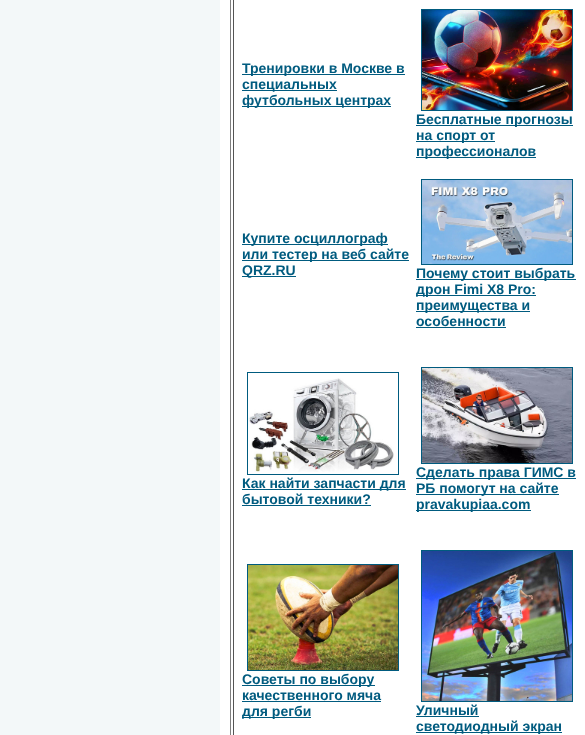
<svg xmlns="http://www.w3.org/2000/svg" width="585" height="735">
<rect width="100%" height="100%" fill="#f3f8f9"/>
<rect x="220" width="365" height="735" fill="#fff"/>
<rect x="230" width="1" height="735" fill="#808080"/>
<rect x="233" width="1" height="735" fill="#555"/>
<rect x="242" y="74" width="163" height="1" fill="#005b7f"/>
<text x="242" y="73" style="font-family:Liberation Sans;font-size:14px;font-weight:bold;fill:#005b7f">Тренировки в Москве в</text>
<rect x="242" y="90" width="95" height="1" fill="#005b7f"/>
<text x="242" y="89" style="font-family:Liberation Sans;font-size:14px;font-weight:bold;fill:#005b7f">специальных</text>
<rect x="242" y="106" width="149" height="1" fill="#005b7f"/>
<text x="242" y="105" style="font-family:Liberation Sans;font-size:14px;font-weight:bold;fill:#005b7f">футбольных центрах</text>
<rect x="421.5" y="9.5" width="151" height="101" fill="none" stroke="#005b7f"/>
<image x="422" y="10" width="150" height="100" href="media/1.png"/>
<rect x="416" y="125" width="157" height="1" fill="#005b7f"/>
<text x="416" y="124" style="font-family:Liberation Sans;font-size:14px;font-weight:bold;fill:#005b7f">Бесплатные прогнозы</text>
<rect x="416" y="141" width="79" height="1" fill="#005b7f"/>
<text x="416" y="140" style="font-family:Liberation Sans;font-size:14px;font-weight:bold;fill:#005b7f">на спорт от</text>
<rect x="416" y="157" width="120" height="1" fill="#005b7f"/>
<text x="416" y="156" style="font-family:Liberation Sans;font-size:14px;font-weight:bold;fill:#005b7f">профессионалов</text>
<rect x="242" y="244" width="146" height="1" fill="#005b7f"/>
<text x="242" y="243" style="font-family:Liberation Sans;font-size:14px;font-weight:bold;fill:#005b7f">Купите осциллограф</text>
<rect x="242" y="260" width="167" height="1" fill="#005b7f"/>
<text x="242" y="259" style="font-family:Liberation Sans;font-size:14px;font-weight:bold;fill:#005b7f">или тестер на веб сайте</text>
<rect x="242" y="276" width="54" height="1" fill="#005b7f"/>
<text x="242" y="275" style="font-family:Liberation Sans;font-size:14px;font-weight:bold;fill:#005b7f">QRZ.RU</text>
<rect x="421.5" y="179.5" width="151" height="85" fill="none" stroke="#005b7f"/>
<image x="422" y="180" width="150" height="84" href="media/2.png"/>
<rect x="416" y="279" width="160" height="1" fill="#005b7f"/>
<text x="416" y="278" style="font-family:Liberation Sans;font-size:14px;font-weight:bold;fill:#005b7f">Почему стоит выбрать</text>
<rect x="416" y="295" width="120" height="1" fill="#005b7f"/>
<text x="416" y="294" style="font-family:Liberation Sans;font-size:14px;font-weight:bold;fill:#005b7f">дрон Fimi X8 Pro:</text>
<rect x="416" y="311" width="114" height="1" fill="#005b7f"/>
<text x="416" y="310" style="font-family:Liberation Sans;font-size:14px;font-weight:bold;fill:#005b7f">преимущества и</text>
<text x="416" y="326" style="font-family:Liberation Sans;font-size:14px;font-weight:bold;fill:#005b7f">особенности</text>
<rect x="416" y="327" width="90" height="1" fill="#005b7f"/>
<rect x="247.5" y="372.5" width="151" height="102" fill="none" stroke="#005b7f"/>
<image x="248" y="378" width="146" height="94" href="media/3.png"/>
<rect x="242" y="489" width="164" height="1" fill="#005b7f"/>
<text x="242" y="488" style="font-family:Liberation Sans;font-size:14px;font-weight:bold;fill:#005b7f">Как найти запчасти для</text>
<text x="242" y="504" style="font-family:Liberation Sans;font-size:14px;font-weight:bold;fill:#005b7f">бытовой техники?</text>
<rect x="242" y="505" width="129" height="1" fill="#005b7f"/>
<rect x="421.5" y="367.5" width="151" height="96" fill="none" stroke="#005b7f"/>
<image x="422" y="368" width="150" height="95" href="media/4.png"/>
<rect x="416" y="478" width="160" height="1" fill="#005b7f"/>
<text x="416" y="477" style="font-family:Liberation Sans;font-size:14px;font-weight:bold;fill:#005b7f">Сделать права ГИМС в</text>
<rect x="416" y="494" width="143" height="1" fill="#005b7f"/>
<text x="416" y="493" style="font-family:Liberation Sans;font-size:14px;font-weight:bold;fill:#005b7f">РБ помогут на сайте</text>
<rect x="416" y="510" width="115" height="1" fill="#005b7f"/>
<text x="416" y="509" style="font-family:Liberation Sans;font-size:14px;font-weight:bold;fill:#005b7f">pravakupiaa.com</text>
<rect x="247.5" y="564.5" width="151" height="106" fill="none" stroke="#005b7f"/>
<image x="248" y="565" width="150" height="105" href="media/5.png"/>
<rect x="242" y="685" width="133" height="1" fill="#005b7f"/>
<text x="242" y="684" style="font-family:Liberation Sans;font-size:14px;font-weight:bold;fill:#005b7f">Cоветы по выбору</text>
<text x="242" y="700" style="font-family:Liberation Sans;font-size:14px;font-weight:bold;fill:#005b7f">качественного мяча</text>
<rect x="242" y="701" width="139" height="1" fill="#005b7f"/>
<rect x="242" y="717" width="69" height="1" fill="#005b7f"/>
<text x="242" y="716" style="font-family:Liberation Sans;font-size:14px;font-weight:bold;fill:#005b7f">для регби</text>
<rect x="421.5" y="550.5" width="151" height="151" fill="none" stroke="#005b7f"/>
<image x="422" y="551" width="150" height="150" href="media/6.png"/>
<text x="416" y="715" style="font-family:Liberation Sans;font-size:14px;font-weight:bold;fill:#005b7f">Уличный</text>
<rect x="416" y="716" width="63" height="1" fill="#005b7f"/>
<rect x="416" y="732" width="146" height="1" fill="#005b7f"/>
<text x="416" y="731" style="font-family:Liberation Sans;font-size:14px;font-weight:bold;fill:#005b7f">светодиодный экран</text>
</svg>
